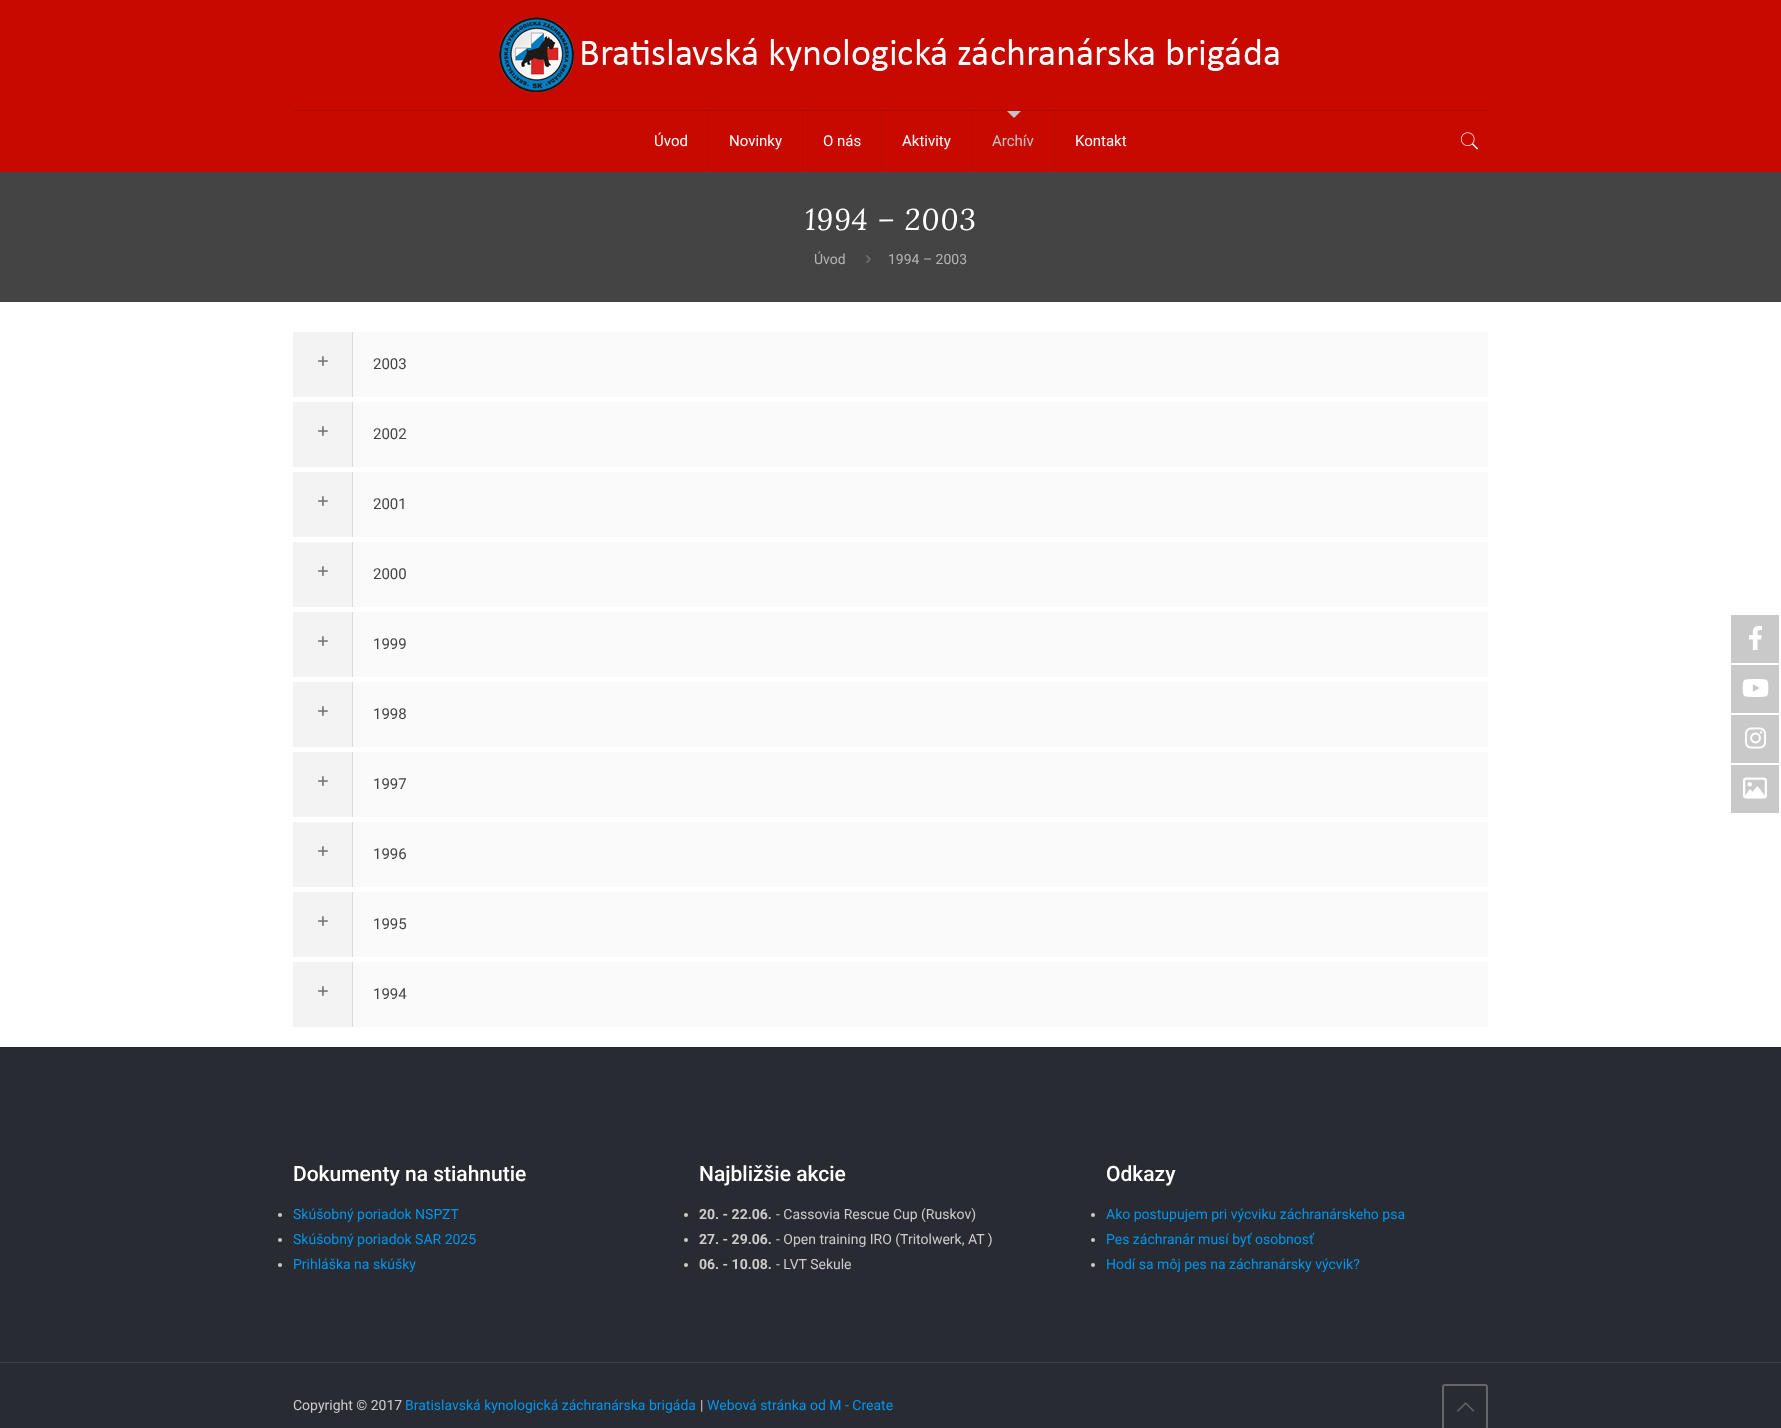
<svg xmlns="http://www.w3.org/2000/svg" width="1781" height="1428">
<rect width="100%" height="100%" fill="#fff"/>
<rect width="1781" height="172" fill="#c70900"/>
<rect x="293" y="110" width="1195" height="1" fill="#b70800"/>
<image x="499" y="17" width="780" height="75" href="media/1.png"/>
<rect x="708" y="111" width="1" height="60" fill="#bd0900"/>
<text x="654" y="146" style="font-family:Roboto;font-size:15px;fill:#fff">Úvod</text>
<rect x="802" y="111" width="1" height="60" fill="#bd0900"/>
<text x="729" y="146" style="font-family:Roboto;font-size:15px;fill:#fff">Novinky</text>
<rect x="881" y="111" width="1" height="60" fill="#bd0900"/>
<text x="823" y="146" style="font-family:Roboto;font-size:15px;fill:#fff">O nás</text>
<rect x="971" y="111" width="1" height="60" fill="#bd0900"/>
<text x="902" y="146" style="font-family:Roboto;font-size:15px;fill:#fff">Aktivity</text>
<path d="M1007 111h14l-7 7z" fill="#c4c4c4"/>
<rect x="1054" y="111" width="1" height="60" fill="#bd0900"/>
<text x="992" y="146" style="font-family:Roboto;font-size:15px;fill:#c4c4c4">Archív</text>
<text x="1075" y="146" style="font-family:Roboto;font-size:15px;fill:#fff">Kontakt</text>
<image x="1460" y="132" width="19" height="18" href="media/2.png"/>
<rect y="172" width="1781" height="130" fill="#444"/>
<text x="805" y="230" style="font-family:Lora;font-size:30px;font-style:italic;letter-spacing:1px;fill:#fff">1994 – 2003</text>
<text x="814" y="264" style="font-family:Roboto;font-size:14px;fill:#b4b4b4">Úvod</text>
<image x="866" y="255" width="5" height="8" href="media/3.png"/>
<text x="888" y="264" style="font-family:Roboto;font-size:14px;fill:#b4b4b4">1994 – 2003</text>
<rect x="353" y="332" width="1135" height="65" fill="#fafafa"/>
<rect x="293" y="332" width="59" height="65" fill="#f3f3f3"/>
<rect x="352" y="332" width="1" height="65" fill="#dadada"/>
<image x="318" y="356" width="10" height="10" href="media/4.png"/>
<text x="373" y="369" style="font-family:Roboto;font-size:15px;fill:#444">2003</text>
<rect x="353" y="402" width="1135" height="65" fill="#fafafa"/>
<rect x="293" y="402" width="59" height="65" fill="#f3f3f3"/>
<rect x="352" y="402" width="1" height="65" fill="#dadada"/>
<image x="318" y="426" width="10" height="10" href="media/4.png"/>
<text x="373" y="439" style="font-family:Roboto;font-size:15px;fill:#444">2002</text>
<rect x="353" y="472" width="1135" height="65" fill="#fafafa"/>
<rect x="293" y="472" width="59" height="65" fill="#f3f3f3"/>
<rect x="352" y="472" width="1" height="65" fill="#dadada"/>
<image x="318" y="496" width="10" height="10" href="media/4.png"/>
<text x="373" y="509" style="font-family:Roboto;font-size:15px;fill:#444">2001</text>
<rect x="353" y="542" width="1135" height="65" fill="#fafafa"/>
<rect x="293" y="542" width="59" height="65" fill="#f3f3f3"/>
<rect x="352" y="542" width="1" height="65" fill="#dadada"/>
<image x="318" y="566" width="10" height="10" href="media/4.png"/>
<text x="373" y="579" style="font-family:Roboto;font-size:15px;fill:#444">2000</text>
<rect x="353" y="612" width="1135" height="65" fill="#fafafa"/>
<rect x="293" y="612" width="59" height="65" fill="#f3f3f3"/>
<rect x="352" y="612" width="1" height="65" fill="#dadada"/>
<image x="318" y="636" width="10" height="10" href="media/4.png"/>
<text x="373" y="649" style="font-family:Roboto;font-size:15px;fill:#444">1999</text>
<rect x="353" y="682" width="1135" height="65" fill="#fafafa"/>
<rect x="293" y="682" width="59" height="65" fill="#f3f3f3"/>
<rect x="352" y="682" width="1" height="65" fill="#dadada"/>
<image x="318" y="706" width="10" height="10" href="media/4.png"/>
<text x="373" y="719" style="font-family:Roboto;font-size:15px;fill:#444">1998</text>
<rect x="353" y="752" width="1135" height="65" fill="#fafafa"/>
<rect x="293" y="752" width="59" height="65" fill="#f3f3f3"/>
<rect x="352" y="752" width="1" height="65" fill="#dadada"/>
<image x="318" y="776" width="10" height="10" href="media/4.png"/>
<text x="373" y="789" style="font-family:Roboto;font-size:15px;fill:#444">1997</text>
<rect x="353" y="822" width="1135" height="65" fill="#fafafa"/>
<rect x="293" y="822" width="59" height="65" fill="#f3f3f3"/>
<rect x="352" y="822" width="1" height="65" fill="#dadada"/>
<image x="318" y="846" width="10" height="10" href="media/4.png"/>
<text x="373" y="859" style="font-family:Roboto;font-size:15px;fill:#444">1996</text>
<rect x="353" y="892" width="1135" height="65" fill="#fafafa"/>
<rect x="293" y="892" width="59" height="65" fill="#f3f3f3"/>
<rect x="352" y="892" width="1" height="65" fill="#dadada"/>
<image x="318" y="916" width="10" height="10" href="media/4.png"/>
<text x="373" y="929" style="font-family:Roboto;font-size:15px;fill:#444">1995</text>
<rect x="353" y="962" width="1135" height="65" fill="#fafafa"/>
<rect x="293" y="962" width="59" height="65" fill="#f3f3f3"/>
<rect x="352" y="962" width="1" height="65" fill="#dadada"/>
<image x="318" y="986" width="10" height="10" href="media/4.png"/>
<text x="373" y="999" style="font-family:Roboto;font-size:15px;fill:#444">1994</text>
<rect y="1047" width="1781" height="381" fill="#292b33"/>
<text x="293" y="1181" style="font-family:Roboto;font-size:21px;font-weight:500;fill:#fff">Dokumenty na stiahnutie</text>
<circle cx="280" cy="1215" r="2" fill="#ccc"/>
<text x="293" y="1219" style="font-family:Roboto;font-size:14px;fill:#0095eb">Skúšobný poriadok NSPZT</text>
<circle cx="280" cy="1240" r="2" fill="#ccc"/>
<text x="293" y="1244" style="font-family:Roboto;font-size:14px;fill:#0095eb">Skúšobný poriadok SAR 2025</text>
<circle cx="280" cy="1265" r="2" fill="#ccc"/>
<text x="293" y="1269" style="font-family:Roboto;font-size:14px;fill:#0095eb">Prihláška na skúšky</text>
<text x="699" y="1181" style="font-family:Roboto;font-size:21px;font-weight:500;fill:#fff">Najbližšie akcie</text>
<circle cx="686" cy="1215" r="2" fill="#ccc"/>
<text x="699" y="1219" style="font-family:Roboto;font-size:14px;font-weight:bold;fill:#ccc">20. - 22.06.</text>
<text x="776" y="1219" style="font-family:Roboto;font-size:14px;fill:#ccc">- Cassovia Rescue Cup (Ruskov)</text>
<circle cx="686" cy="1240" r="2" fill="#ccc"/>
<text x="699" y="1244" style="font-family:Roboto;font-size:14px;font-weight:bold;fill:#ccc">27. - 29.06.</text>
<text x="776" y="1244" style="font-family:Roboto;font-size:14px;fill:#ccc">- Open training IRO (Tritolwerk, AT )</text>
<circle cx="686" cy="1265" r="2" fill="#ccc"/>
<text x="699" y="1269" style="font-family:Roboto;font-size:14px;font-weight:bold;fill:#ccc">06. - 10.08.</text>
<text x="776" y="1269" style="font-family:Roboto;font-size:14px;fill:#ccc">- LVT Sekule</text>
<text x="1106" y="1181" style="font-family:Roboto;font-size:21px;font-weight:500;fill:#fff">Odkazy</text>
<circle cx="1093" cy="1215" r="2" fill="#ccc"/>
<text x="1106" y="1219" style="font-family:Roboto;font-size:14px;fill:#0095eb">Ako postupujem pri výcviku záchranárskeho psa</text>
<circle cx="1093" cy="1240" r="2" fill="#ccc"/>
<text x="1106" y="1244" style="font-family:Roboto;font-size:14px;fill:#0095eb">Pes záchranár musí byť osobnosť</text>
<circle cx="1093" cy="1265" r="2" fill="#ccc"/>
<text x="1106" y="1269" style="font-family:Roboto;font-size:14px;fill:#0095eb">Hodí sa môj pes na záchranársky výcvik?</text>
<rect y="1362" width="1781" height="1" fill="#3e4047"/>
<text x="293" y="1410" style="font-family:Roboto;font-size:14px;fill:#ccc">Copyright © 2017</text>
<text x="405" y="1410" style="font-family:Roboto;font-size:14px;fill:#0095eb">Bratislavská kynologická záchranárska brigáda</text>
<text x="700" y="1410" style="font-family:Roboto;font-size:14px;fill:#ccc">|</text>
<text x="707" y="1410" style="font-family:Roboto;font-size:14px;fill:#0095eb">Webová stránka od M - Create</text>
<rect x="1443" y="1385" width="44" height="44" rx="2" fill="none" stroke="#65666c" stroke-width="2"/>
<image x="1457" y="1402" width="18" height="10" href="media/5.png"/>
<rect x="1731" y="615" width="48" height="48" fill="#c9c9c9"/>
<image x="1749" y="626" width="13" height="24" href="media/6.png"/>
<rect x="1731" y="665" width="48" height="48" fill="#c9c9c9"/>
<image x="1742" y="679" width="27" height="18" href="media/7.png"/>
<rect x="1731" y="715" width="48" height="48" fill="#c9c9c9"/>
<image x="1745" y="727" width="21" height="22" href="media/8.png"/>
<rect x="1731" y="765" width="48" height="48" fill="#c9c9c9"/>
<image x="1743" y="777" width="24" height="22" href="media/9.png"/>
</svg>
